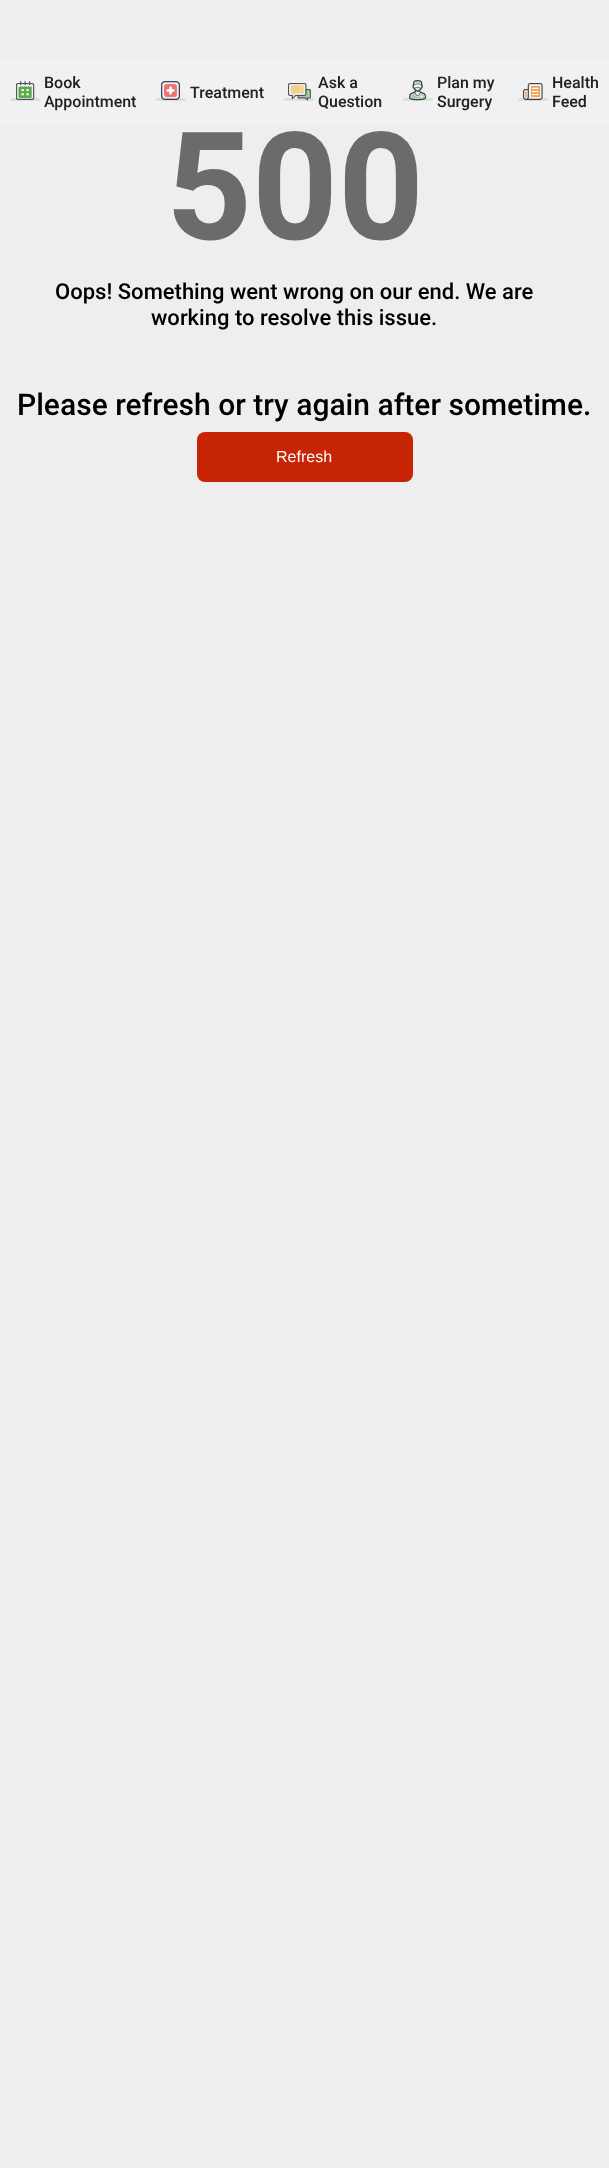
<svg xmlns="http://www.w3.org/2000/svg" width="609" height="2168">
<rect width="100%" height="100%" fill="#eee"/>
<rect y="58" width="609" height="68" fill="#f1f1f1"/>
<image x="10" y="81" width="30" height="20" href="media/1.png"/>
<text x="44" y="88" style="font-family:Roboto;font-size:16px;font-weight:500;fill:#222">Book</text>
<text x="44" y="107" style="font-family:Roboto;font-size:16px;font-weight:500;fill:#222">Appointment</text>
<image x="156" y="81" width="30" height="20" href="media/2.png"/>
<text x="190" y="98" style="font-family:Roboto;font-size:16px;font-weight:500;fill:#222">Treatment</text>
<image x="284" y="83" width="30" height="18" href="media/3.png"/>
<text x="318" y="88" style="font-family:Roboto;font-size:16px;font-weight:500;fill:#222">Ask a</text>
<text x="318" y="107" style="font-family:Roboto;font-size:16px;font-weight:500;fill:#222">Question</text>
<image x="403" y="80" width="30" height="21" href="media/4.png"/>
<text x="437" y="88" style="font-family:Roboto;font-size:16px;font-weight:500;fill:#222">Plan my</text>
<text x="437" y="107" style="font-family:Roboto;font-size:16px;font-weight:500;fill:#222">Surgery</text>
<image x="518" y="83" width="30" height="18" href="media/5.png"/>
<text x="552" y="88" style="font-family:Roboto;font-size:16px;font-weight:500;fill:#222">Health</text>
<text x="552" y="107" style="font-family:Roboto;font-size:16px;font-weight:500;fill:#222">Feed</text>
<text x="166" y="239" style="font-family:Roboto;font-size:150px;font-weight:bold;fill:#6c6a6a">500</text>
<text x="55" y="299" style="font-family:Roboto;font-size:22px;font-weight:500;fill:#000">Oops! Something went wrong on our end. We are</text>
<text x="151" y="325" style="font-family:Roboto;font-size:22px;font-weight:500;fill:#000">working to resolve this issue.</text>
<text x="17" y="415" style="font-family:Roboto;font-size:30px;font-weight:500;fill:#000">Please refresh or try again after sometime.</text>
<rect x="197" y="432" width="216" height="50" rx="8" fill="#c82506"/>
<text x="276" y="462" style="font-family:Liberation Sans;font-size:16px;fill:#fff">Refresh</text>
</svg>
